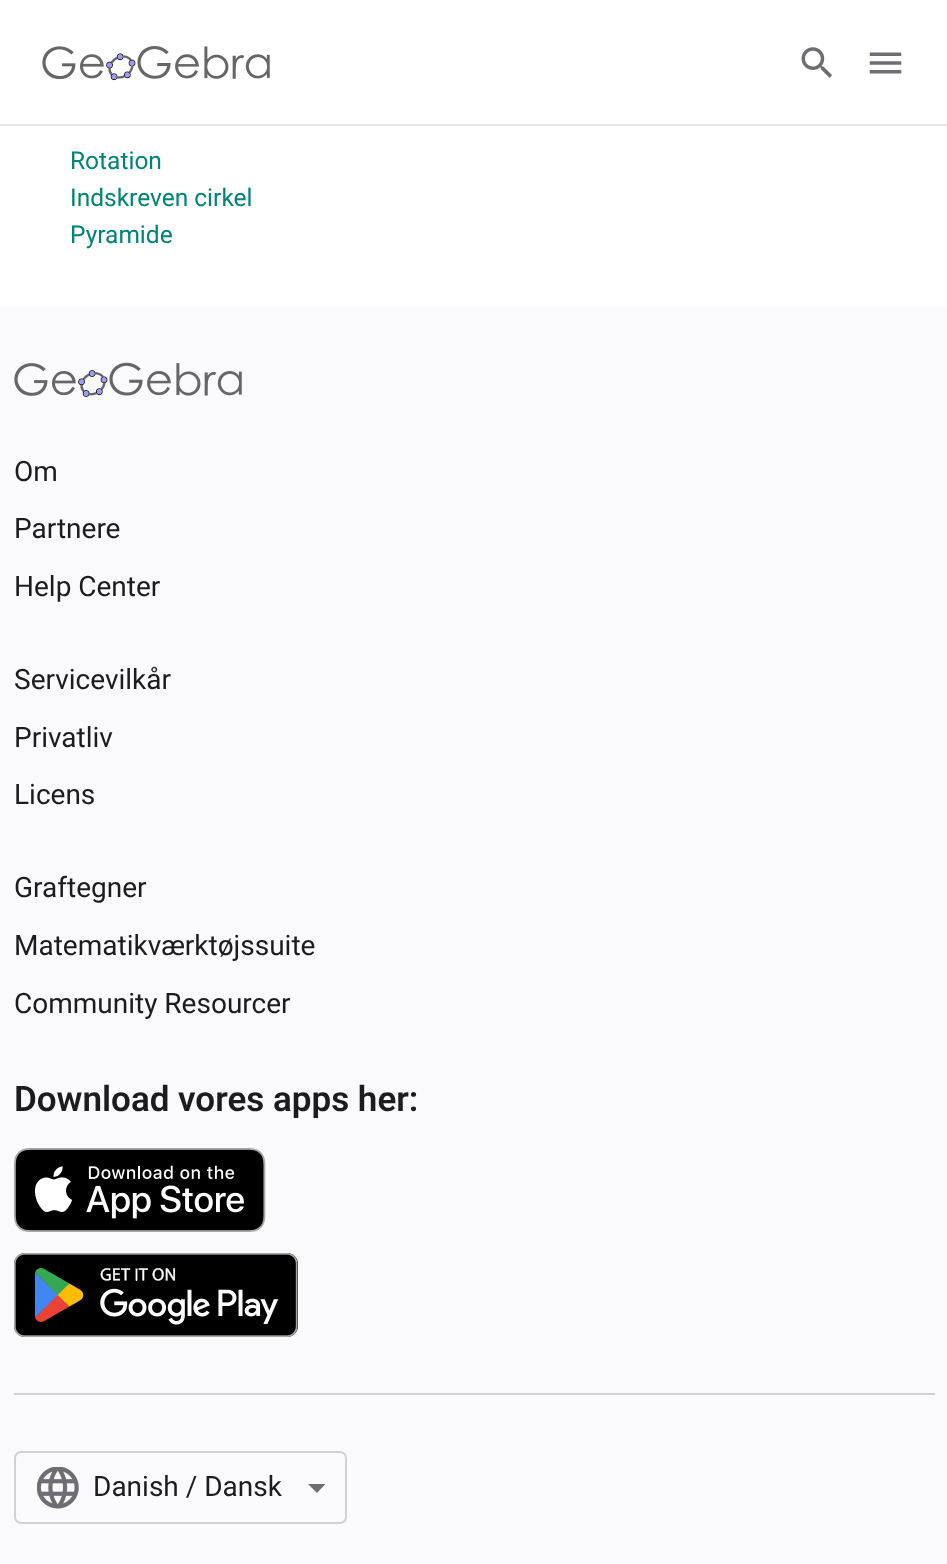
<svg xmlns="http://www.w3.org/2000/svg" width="947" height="1564">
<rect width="100%" height="100%" fill="#fff"/>
<rect y="124" width="947" height="2" fill="#e6e6eb"/>
<image x="42" y="46" width="228" height="35" href="media/1.png"/>
<image x="801" y="47" width="31" height="31" href="media/2.png"/>
<image x="869" y="52" width="33" height="22" href="media/3.png"/>
<text x="70" y="169" style="font-family:Roboto;font-size:24.5px;fill:#008475">Rotation</text>
<text x="70" y="206" style="font-family:Roboto;font-size:24.5px;fill:#008475">Indskreven cirkel</text>
<text x="70" y="243" style="font-family:Roboto;font-size:24.5px;fill:#008475">Pyramide</text>
<rect y="306" width="947" height="1258" fill="#fafafc"/>
<image x="14" y="362" width="228" height="35" href="media/4.png"/>
<text x="14" y="481" style="font-family:Roboto;font-size:28px;fill:#1c1c1f">Om</text>
<text x="14" y="538" style="font-family:Roboto;font-size:28px;fill:#1c1c1f">Partnere</text>
<text x="14" y="596" style="font-family:Roboto;font-size:28px;fill:#1c1c1f">Help Center</text>
<text x="14" y="689" style="font-family:Roboto;font-size:28px;fill:#1c1c1f">Servicevilkår</text>
<text x="14" y="747" style="font-family:Roboto;font-size:28px;fill:#1c1c1f">Privatliv</text>
<text x="14" y="804" style="font-family:Roboto;font-size:28px;fill:#1c1c1f">Licens</text>
<text x="14" y="897" style="font-family:Roboto;font-size:28px;fill:#1c1c1f">Graftegner</text>
<text x="14" y="955" style="font-family:Roboto;font-size:28px;fill:#1c1c1f">Matematikværktøjssuite</text>
<text x="14" y="1013" style="font-family:Roboto;font-size:28px;fill:#1c1c1f">Community Resourcer</text>
<text x="14" y="1111" style="font-family:Roboto;font-size:35px;font-weight:600;fill:#1c1c1f">Download vores apps her:</text>
<image x="14" y="1148" width="252" height="84" href="media/5.png"/>
<image x="14" y="1253" width="284" height="84" href="media/6.png"/>
<rect x="14" y="1393" width="921" height="2" fill="#d1d0d6"/>
<rect x="15" y="1452" width="331" height="71" rx="6" fill="none" stroke="#d1d0d6" stroke-width="2"/>
<image x="37" y="1467" width="42" height="42" href="media/7.png"/>
<text x="93" y="1496" style="font-family:Roboto;font-size:28px;fill:#1c1c1f">Danish / Dansk</text>
<path d="M308 1484l9 9l8.5-9z" fill="#6e6d73"/>
</svg>
